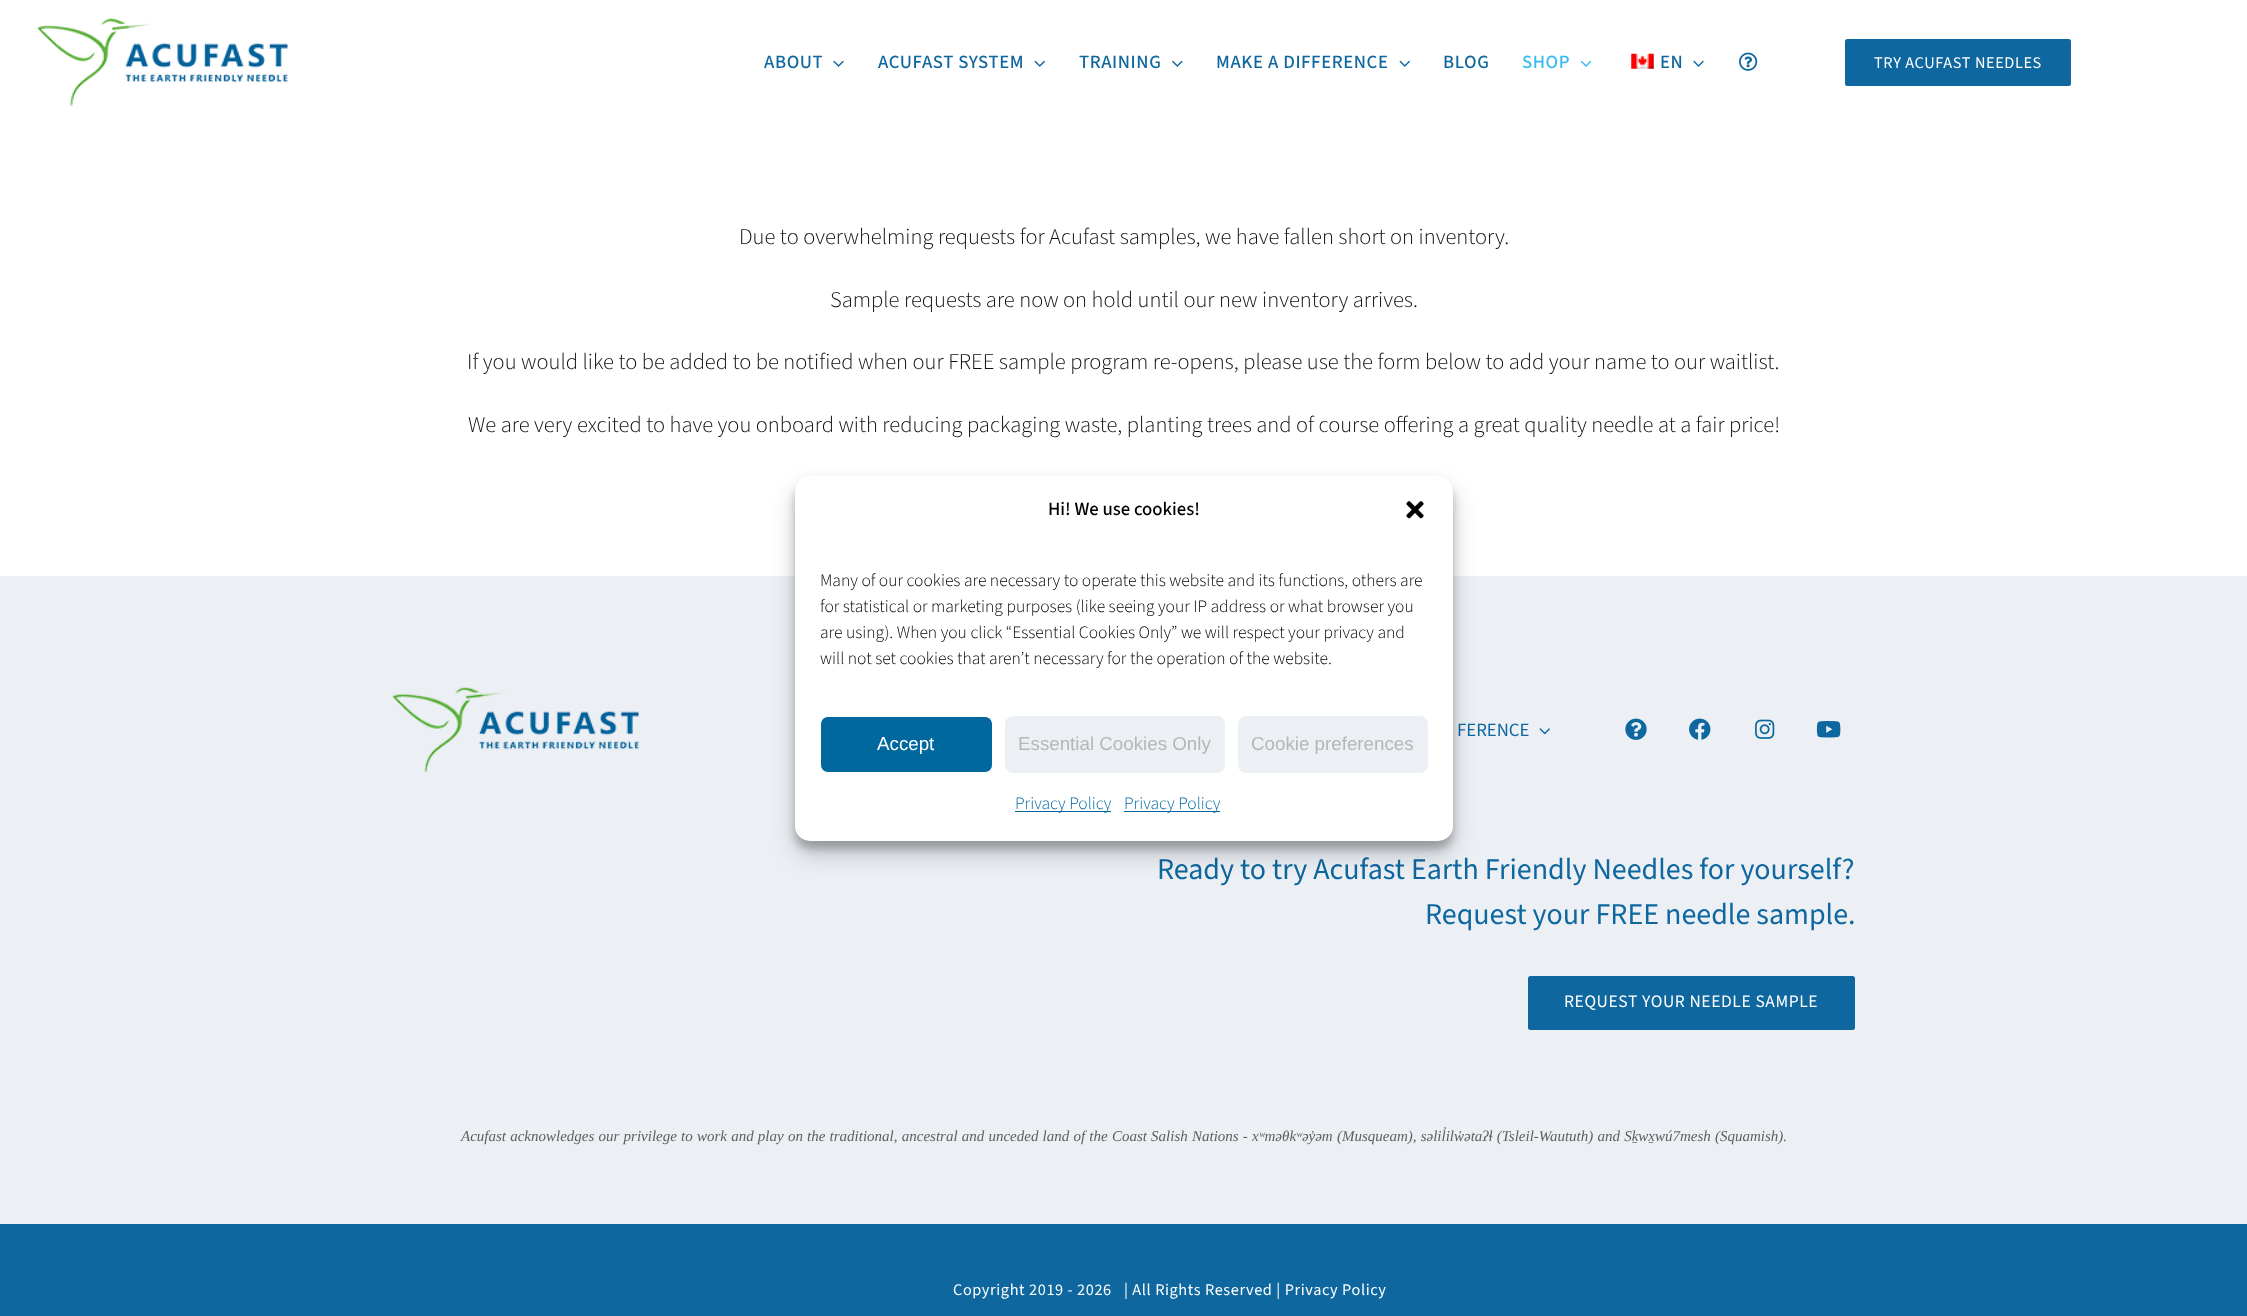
<svg xmlns="http://www.w3.org/2000/svg" width="2247" height="1316">
<rect width="100%" height="100%" fill="#fff"/>
<image x="37" y="18" width="251" height="89" href="media/1.png"/>
<text x="764" y="68" style="font-family:'Source Sans 3';font-size:18.75px;font-weight:500;letter-spacing:0.6px;fill:#0e679f">ABOUT</text>
<image x="833" y="60" width="11" height="7" href="media/2.png"/>
<text x="878" y="68" style="font-family:'Source Sans 3';font-size:18.75px;font-weight:500;letter-spacing:0.6px;fill:#0e679f">ACUFAST SYSTEM</text>
<image x="1034" y="60" width="11" height="7" href="media/3.png"/>
<text x="1079" y="68" style="font-family:'Source Sans 3';font-size:18.75px;font-weight:500;letter-spacing:0.6px;fill:#0e679f">TRAINING</text>
<image x="1172" y="60" width="11" height="7" href="media/4.png"/>
<text x="1216" y="68" style="font-family:'Source Sans 3';font-size:18.75px;font-weight:500;letter-spacing:0.6px;fill:#0e679f">MAKE A DIFFERENCE</text>
<image x="1399" y="60" width="11" height="7" href="media/3.png"/>
<text x="1443" y="68" style="font-family:'Source Sans 3';font-size:18.75px;font-weight:500;letter-spacing:0.6px;fill:#0e679f">BLOG</text>
<text x="1522" y="68" style="font-family:'Source Sans 3';font-size:18.75px;font-weight:500;letter-spacing:0.6px;fill:#35baf2">SHOP</text>
<image x="1580" y="60" width="12" height="7" href="media/5.png"/>
<image x="1631" y="53" width="23" height="16" href="media/6.png"/>
<text x="1660" y="68" style="font-family:'Source Sans 3';font-size:18.75px;font-weight:500;letter-spacing:0.6px;fill:#0e679f">EN</text>
<image x="1693" y="60" width="11" height="7" href="media/2.png"/>
<image x="1739" y="52" width="19" height="19" href="media/7.png"/>
<rect x="1845" y="39" width="226" height="47" rx="2.5" fill="#0e679f"/>
<text x="1874" y="68" style="font-family:'Source Sans 3';font-size:16.25px;letter-spacing:0.6px;fill:#fff">TRY ACUFAST NEEDLES</text>
<text x="739" y="244" style="font-family:'Source Sans 3';font-size:22.5px;font-weight:300;fill:#0f0f0f">Due to overwhelming requests for Acufast samples, we have fallen short on inventory.</text>
<text x="830" y="307" style="font-family:'Source Sans 3';font-size:22.5px;font-weight:300;fill:#0f0f0f">Sample requests are now on hold until our new inventory arrives.</text>
<text x="467" y="369" style="font-family:'Source Sans 3';font-size:22.5px;font-weight:300;fill:#0f0f0f">If you would like to be added to be notified when our FREE sample program re-opens, please use the form below to add your name to our waitlist.</text>
<text x="468" y="432" style="font-family:'Source Sans 3';font-size:22.5px;font-weight:300;fill:#0f0f0f">We are very excited to have you onboard with reducing packaging waste, planting trees and of course offering a great quality needle at a fair price!</text>
<rect y="576" width="2247" height="648" fill="#ecf0f5"/>
<image x="392" y="687" width="247" height="86" href="media/8.png"/>
<text x="1457" y="736" style="font-family:'Source Sans 3';font-size:18.75px;fill:#0e679f">FERENCE</text>
<image x="1539" y="728" width="11" height="7" href="media/9.png"/>
<image x="1625" y="718" width="22" height="22" href="media/10.png"/>
<image x="1689" y="718" width="22" height="22" href="media/11.png"/>
<image x="1755" y="719" width="20" height="20" href="media/12.png"/>
<image x="1816" y="721" width="25" height="17" href="media/13.png"/>
<text x="1157" y="879" style="font-family:'Source Sans 3';font-size:30px;fill:#0e679f">Ready to try Acufast Earth Friendly Needles for yourself?</text>
<text x="1425" y="924" style="font-family:'Source Sans 3';font-size:30px;fill:#0e679f">Request your FREE needle sample.</text>
<rect x="1528" y="976" width="327" height="54" rx="2.5" fill="#0e679f"/>
<text x="1564" y="1007" style="font-family:'Source Sans 3';font-size:17.5px;letter-spacing:0.6px;fill:#fff">REQUEST YOUR NEEDLE SAMPLE</text>
<text x="461" y="1141" word-spacing="0.45" style="font-family:Liberation Serif;font-size:15px;font-style:italic;fill:#5e5e5e">Acufast acknowledges our privilege to work and play on the traditional, ancestral and unceded land of the Coast Salish Nations - xʷməθkʷəy̓əm (Musqueam), səlil̓ilw̓ətaʔɬ (Tsleil-Waututh) and Sḵwx̱wú7mesh (Squamish).</text>
<rect y="1224" width="2247" height="92" fill="#0e679f"/>
<text x="953" y="1295" style="font-family:'Source Sans 3';font-size:16.25px;letter-spacing:0.6px;fill:#fff">Copyright 2019 - 2026</text>
<text x="1124" y="1295" style="font-family:'Source Sans 3';font-size:16.25px;letter-spacing:0.6px;fill:#fff">| All Rights Reserved | Privacy Policy</text>
<rect x="795" y="484" width="658" height="365" rx="15" fill="#0000003b" filter="blur(4px)"/>
<rect x="795" y="489" width="658" height="365" rx="15" fill="#00000030" filter="blur(12.5px)"/>
<rect x="795" y="476" width="658" height="365" rx="15" fill="#fff"/>
<text x="1048" y="515" style="font-family:'Source Sans 3';font-size:18.75px;font-weight:500;fill:#000">Hi! We use cookies!</text>
<image x="1406" y="501" width="18" height="18" href="media/14.png"/>
<text x="820" y="586" style="font-family:'Source Sans 3';font-size:17.5px;font-weight:300;fill:#000">Many of our cookies are necessary to operate this website and its functions, others are</text>
<text x="820" y="612" style="font-family:'Source Sans 3';font-size:17.5px;font-weight:300;fill:#000">for statistical or marketing purposes (like seeing your IP address or what browser you</text>
<text x="820" y="638" style="font-family:'Source Sans 3';font-size:17.5px;font-weight:300;fill:#000">are using). When you click “Essential Cookies Only” we will respect your privacy and</text>
<text x="820" y="664" style="font-family:'Source Sans 3';font-size:17.5px;font-weight:300;fill:#000">will not set cookies that aren’t necessary for the operation of the website.</text>
<rect x="820.5" y="716.5" width="172" height="56" rx="7.5" fill="#00689f" stroke="#fff"/>
<text x="877" y="750" style="font-family:Liberation Sans;font-size:18.75px;fill:#fff">Accept</text>
<rect x="1005.5" y="716.5" width="219" height="56" rx="7.5" fill="#ecf0f5" stroke="#ecf0f5"/>
<text x="1018" y="750" style="font-family:Liberation Sans;font-size:18.75px;fill:#b7b6b6">Essential Cookies Only</text>
<rect x="1238.5" y="716.5" width="189" height="56" rx="7.5" fill="#ecf0f5" stroke="#ecf0f5"/>
<text x="1251" y="750" style="font-family:Liberation Sans;font-size:18.75px;fill:#b7b6b6">Cookie preferences</text>
<rect x="1015" y="811" width="96" height="1" fill="#00689f"/>
<text x="1015" y="809" style="font-family:'Source Sans 3';font-size:17.5px;font-weight:300;fill:#00689f">Privacy Policy</text>
<rect x="1124" y="811" width="96" height="1" fill="#00689f"/>
<text x="1124" y="809" style="font-family:'Source Sans 3';font-size:17.5px;font-weight:300;fill:#00689f">Privacy Policy</text>
</svg>
